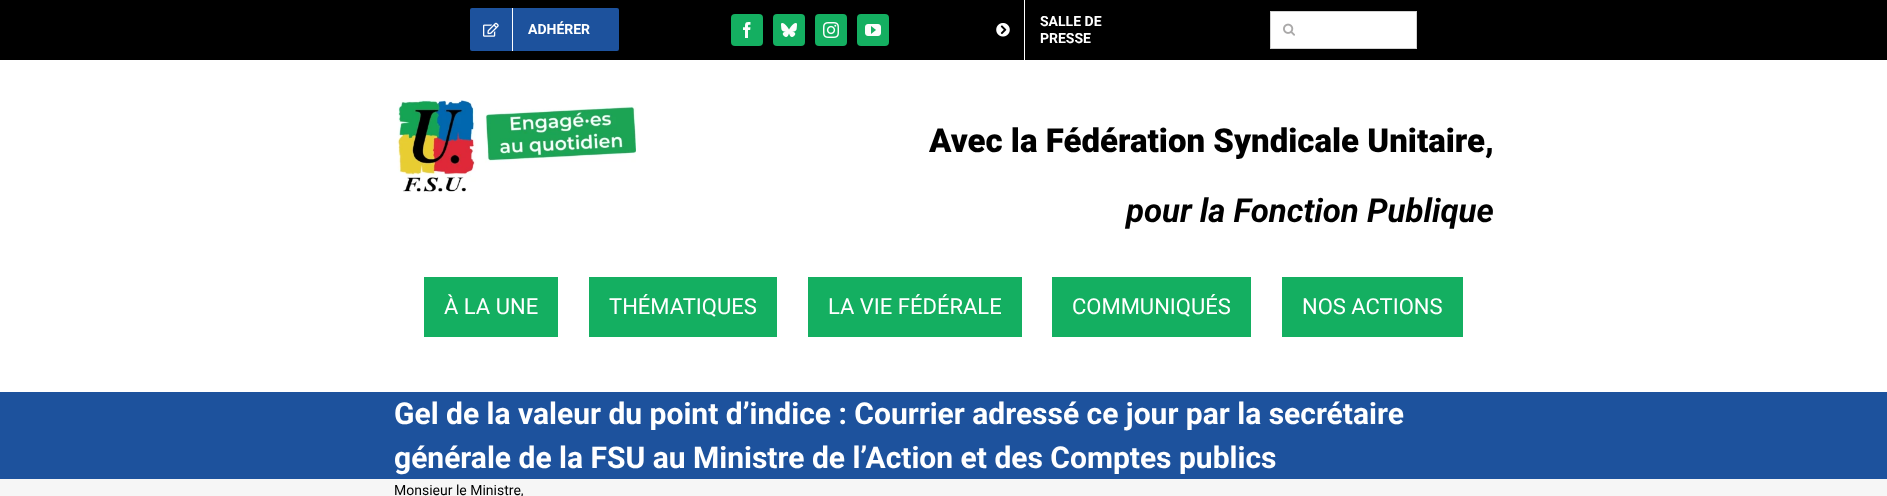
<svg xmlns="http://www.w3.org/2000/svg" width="1887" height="496">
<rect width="100%" height="100%" fill="#f6f6f6"/>
<rect width="1887" height="60" fill="#000"/>
<rect x="470" y="8" width="149" height="43" rx="2" fill="#1d529d"/>
<rect x="512" y="8" width="1" height="43" fill="#fff"/>
<image x="483" y="22" width="16" height="15" href="media/1.png"/>
<text x="528" y="34" style="font-family:Roboto;font-size:14px;font-weight:bold;fill:#fff">ADHÉRER</text>
<rect x="731" y="14" width="32" height="32" rx="4" fill="#14af61"/>
<image x="743" y="22" width="8" height="16" href="media/2.png"/>
<rect x="773" y="14" width="32" height="32" rx="4" fill="#14af61"/>
<image x="781" y="23" width="16" height="14" href="media/3.png"/>
<rect x="815" y="14" width="32" height="32" rx="4" fill="#14af61"/>
<image x="823" y="22" width="16" height="16" href="media/4.png"/>
<rect x="857" y="14" width="32" height="32" rx="4" fill="#14af61"/>
<image x="865" y="24" width="16" height="12" href="media/5.png"/>
<rect x="1024" width="1" height="60" fill="#fff"/>
<image x="996" y="23" width="14" height="14" href="media/6.png"/>
<text x="1040" y="26" style="font-family:Roboto;font-size:14px;font-weight:bold;fill:#fff">SALLE DE</text>
<text x="1040" y="43" style="font-family:Roboto;font-size:14px;font-weight:bold;fill:#fff">PRESSE</text>
<rect x="1270.5" y="11.5" width="146" height="37" fill="#fff" stroke="#d2d2d2"/>
<image x="1283" y="23" width="12" height="13" href="media/7.png"/>
<rect y="60" width="1887" height="332" fill="#fff"/>
<image x="397" y="100" width="239" height="94" href="media/8.png"/>
<text x="929" y="152" style="font-family:Roboto;font-size:33px;font-weight:900;fill:#000">Avec la Fédération Syndicale Unitaire,</text>
<text x="1126" y="222" style="font-family:Roboto;font-size:33px;font-weight:bold;font-style:italic;fill:#000">pour la Fonction Publique</text>
<rect x="424" y="277" width="134" height="60" fill="#14af61"/>
<text x="444" y="314" style="font-family:Roboto;font-size:22px;fill:#fff">À LA UNE</text>
<rect x="589" y="277" width="188" height="60" fill="#14af61"/>
<text x="609" y="314" style="font-family:Roboto;font-size:22px;fill:#fff">THÉMATIQUES</text>
<rect x="808" y="277" width="214" height="60" fill="#14af61"/>
<text x="828" y="314" style="font-family:Roboto;font-size:22px;fill:#fff">LA VIE FÉDÉRALE</text>
<rect x="1052" y="277" width="199" height="60" fill="#14af61"/>
<text x="1072" y="314" style="font-family:Roboto;font-size:22px;fill:#fff">COMMUNIQUÉS</text>
<rect x="1282" y="277" width="181" height="60" fill="#14af61"/>
<text x="1302" y="314" style="font-family:Roboto;font-size:22px;fill:#fff">NOS ACTIONS</text>
<rect y="392" width="1887" height="87" fill="#1d529d"/>
<text x="394" y="424" style="font-family:Roboto;font-size:30px;font-weight:bold;fill:#fff">Gel de la valeur du point d’indice : Courrier adressé ce jour par la secrétaire</text>
<text x="394" y="468" style="font-family:Roboto;font-size:30px;font-weight:bold;fill:#fff">générale de la FSU au Ministre de l’Action et des Comptes publics</text>
<text x="394" y="495" style="font-family:Roboto;font-size:14px;fill:#000">Monsieur le Ministre,</text>
</svg>
